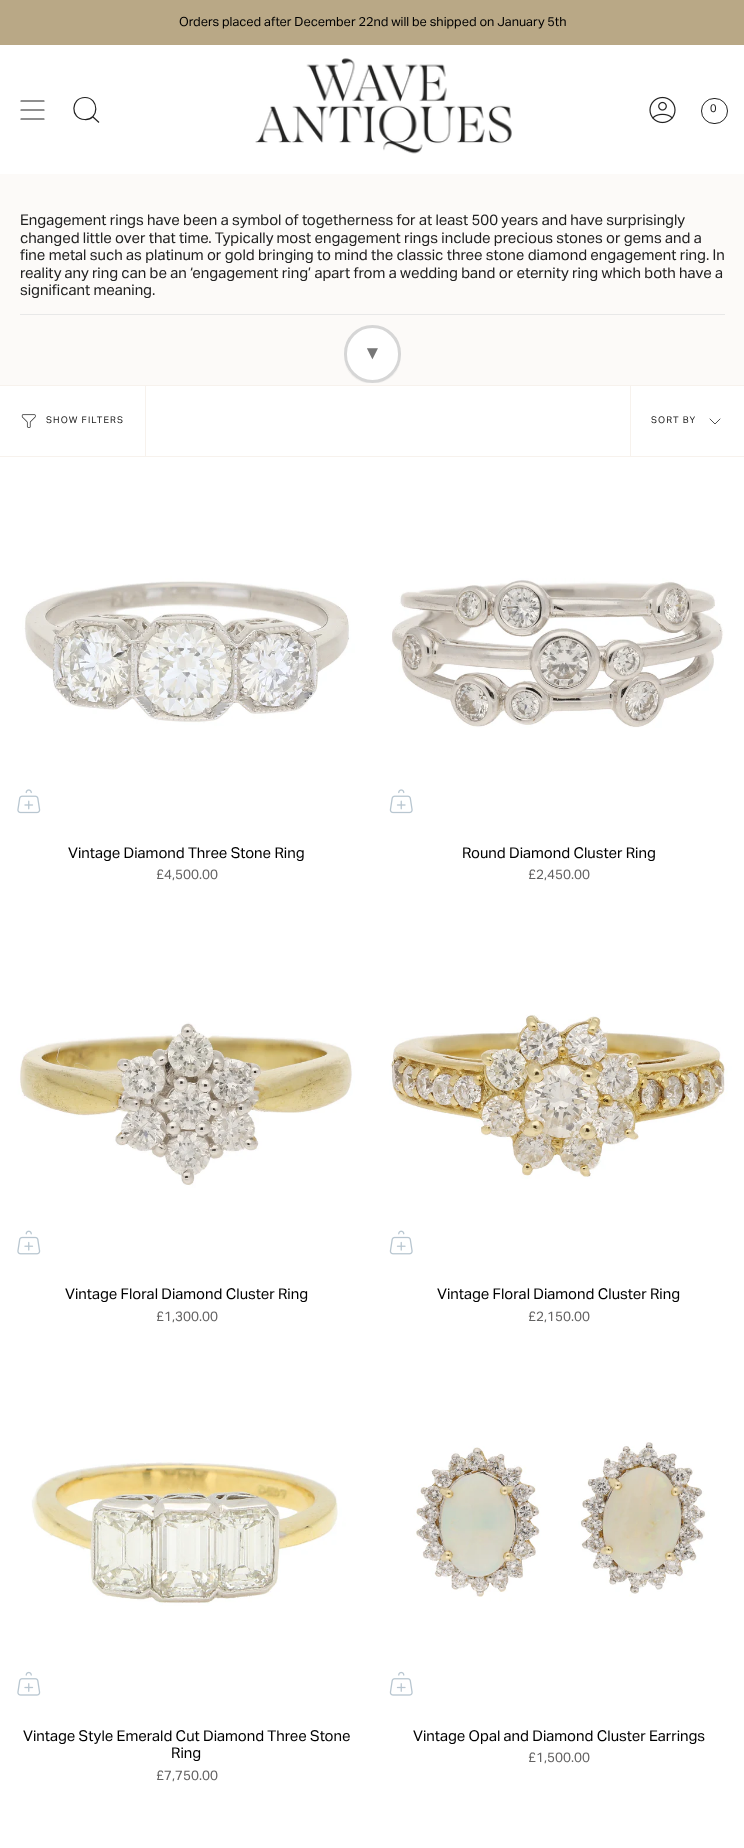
<svg xmlns="http://www.w3.org/2000/svg" width="744" height="1848">
<rect width="100%" height="100%" fill="#fff"/>
<rect width="744" height="45" fill="#b9a886"/>
<text x="179" y="26" style="font-family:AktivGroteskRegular;font-size:12.75px;fill:#000">Orders placed after December 22nd will be shipped on January 5th</text>
<path d="M21 101h23m-23 9h23m-23 9h23" fill="none" stroke="#212121" stroke-width="1.2" stroke-linecap="round" stroke-linejoin="round"/>
<path d="M85 97.5c14.5 0 14.5 23-.5 22c-14.5-.5-14-22 .5-22zm7.5 19l6.5 6" fill="none" stroke="#212121" stroke-width="1.2"/>
<image x="255" y="58" width="257" height="96" href="media/1.png"/>
<image x="649" y="96" width="27" height="28" href="media/2.png"/>
<rect x="701.5" y="98.5" width="26" height="25" rx="12.5" fill="none" stroke="#212121"/>
<text x="710" y="112" style="font-family:AktivGroteskRegular;font-size:11px;fill:#212121">0</text>
<rect y="174" width="744" height="209" fill="#fcfaf8"/>
<text x="20" y="225" style="font-family:AktivGroteskRegular;font-size:14.9px;fill:#212121">Engagement rings have been a symbol of togetherness for at least 500 years and have surprisingly</text>
<text x="20" y="243" style="font-family:AktivGroteskRegular;font-size:14.9px;fill:#212121">changed little over that time. Typically most engagement rings include precious stones or gems and a</text>
<text x="20" y="260" style="font-family:AktivGroteskRegular;font-size:14.9px;fill:#212121">fine metal such as platinum or gold bringing to mind the classic three stone diamond engagement ring. In</text>
<text x="20" y="278" style="font-family:AktivGroteskRegular;font-size:14.9px;fill:#212121">reality any ring can be an ‘engagement ring’ apart from a wedding band or eternity ring which both have a</text>
<text x="20" y="295" style="font-family:AktivGroteskRegular;font-size:14.9px;fill:#212121">significant meaning.</text>
<rect x="20" y="314" width="705" height="1" fill="#e8e8e8"/>
<path d="M344 359c4 33 53 33 57 0c-6 31-51 31-57 0z" fill="#0000000a"/>
<rect x="345.5" y="326.5" width="54" height="55" rx="27" fill="#fff" stroke="#d6d6d6" stroke-width="3"/>
<text x="363" y="359" style="font-family:Liberation Sans;font-size:19px;fill:#777">▼</text>
<rect y="383" width="744" height="2" fill="#fcfaf8"/>
<rect y="385" width="744" height="1" fill="#f7f2ed"/>
<rect y="456" width="744" height="1" fill="#f7f2ed"/>
<rect x="145" y="386" width="1" height="70" fill="#f7f2ed"/>
<image x="21" y="414" width="15" height="14" href="media/3.png"/>
<text x="46" y="423" style="font-family:AktivGroteskRegular;font-size:9.25px;letter-spacing:1.1px;fill:#212121">SHOW FILTERS</text>
<rect x="630" y="386" width="1" height="70" fill="#f7f2ed"/>
<text x="651" y="423" style="font-family:AktivGroteskRegular;font-size:9.25px;letter-spacing:1.1px;fill:#212121">SORT BY</text>
<path d="M710 419l5 5l5-5" fill="none" stroke="#212121" stroke-width="0.8" stroke-linecap="round" stroke-linejoin="round"/>
<image x="0" y="458" width="373" height="372" href="media/4.png"/>
<image x="17" y="789" width="24" height="25" href="media/5.png"/>
<text x="68" y="858" style="font-family:AktivGroteskRegular;font-size:14.9px;fill:#000">Vintage Diamond Three Stone Ring</text>
<text x="156" y="879" style="font-family:AktivGroteskRegular;font-size:13.5px;fill:#636262">£4,500.00</text>
<image x="373" y="458" width="371" height="372" href="media/6.png"/>
<image x="389" y="789" width="24" height="25" href="media/7.png"/>
<text x="462" y="858" style="font-family:AktivGroteskRegular;font-size:14.9px;fill:#000">Round Diamond Cluster Ring</text>
<text x="528" y="879" style="font-family:AktivGroteskRegular;font-size:13.5px;fill:#636262">£2,450.00</text>
<image x="0" y="899" width="373" height="372" href="media/8.png"/>
<image x="17" y="1230" width="24" height="25" href="media/9.png"/>
<text x="65" y="1299" style="font-family:AktivGroteskRegular;font-size:14.9px;fill:#000">Vintage Floral Diamond Cluster Ring</text>
<text x="156" y="1321" style="font-family:AktivGroteskRegular;font-size:13.5px;fill:#636262">£1,300.00</text>
<image x="373" y="899" width="371" height="372" href="media/10.png"/>
<image x="389" y="1230" width="24" height="25" href="media/11.png"/>
<text x="437" y="1299" style="font-family:AktivGroteskRegular;font-size:14.9px;fill:#000">Vintage Floral Diamond Cluster Ring</text>
<text x="528" y="1321" style="font-family:AktivGroteskRegular;font-size:13.5px;fill:#636262">£2,150.00</text>
<image x="0" y="1340" width="373" height="373" href="media/12.png"/>
<image x="17" y="1671" width="24" height="25" href="media/13.png"/>
<text x="23" y="1741" style="font-family:AktivGroteskRegular;font-size:14.9px;fill:#000">Vintage Style Emerald Cut Diamond Three Stone</text>
<text x="171" y="1758" style="font-family:AktivGroteskRegular;font-size:14.9px;fill:#000">Ring</text>
<text x="156" y="1780" style="font-family:AktivGroteskRegular;font-size:13.5px;fill:#636262">£7,750.00</text>
<image x="373" y="1340" width="371" height="373" href="media/14.png"/>
<image x="389" y="1671" width="24" height="25" href="media/15.png"/>
<text x="413" y="1741" style="font-family:AktivGroteskRegular;font-size:14.9px;fill:#000">Vintage Opal and Diamond Cluster Earrings</text>
<text x="528" y="1762" style="font-family:AktivGroteskRegular;font-size:13.5px;fill:#636262">£1,500.00</text>
</svg>
